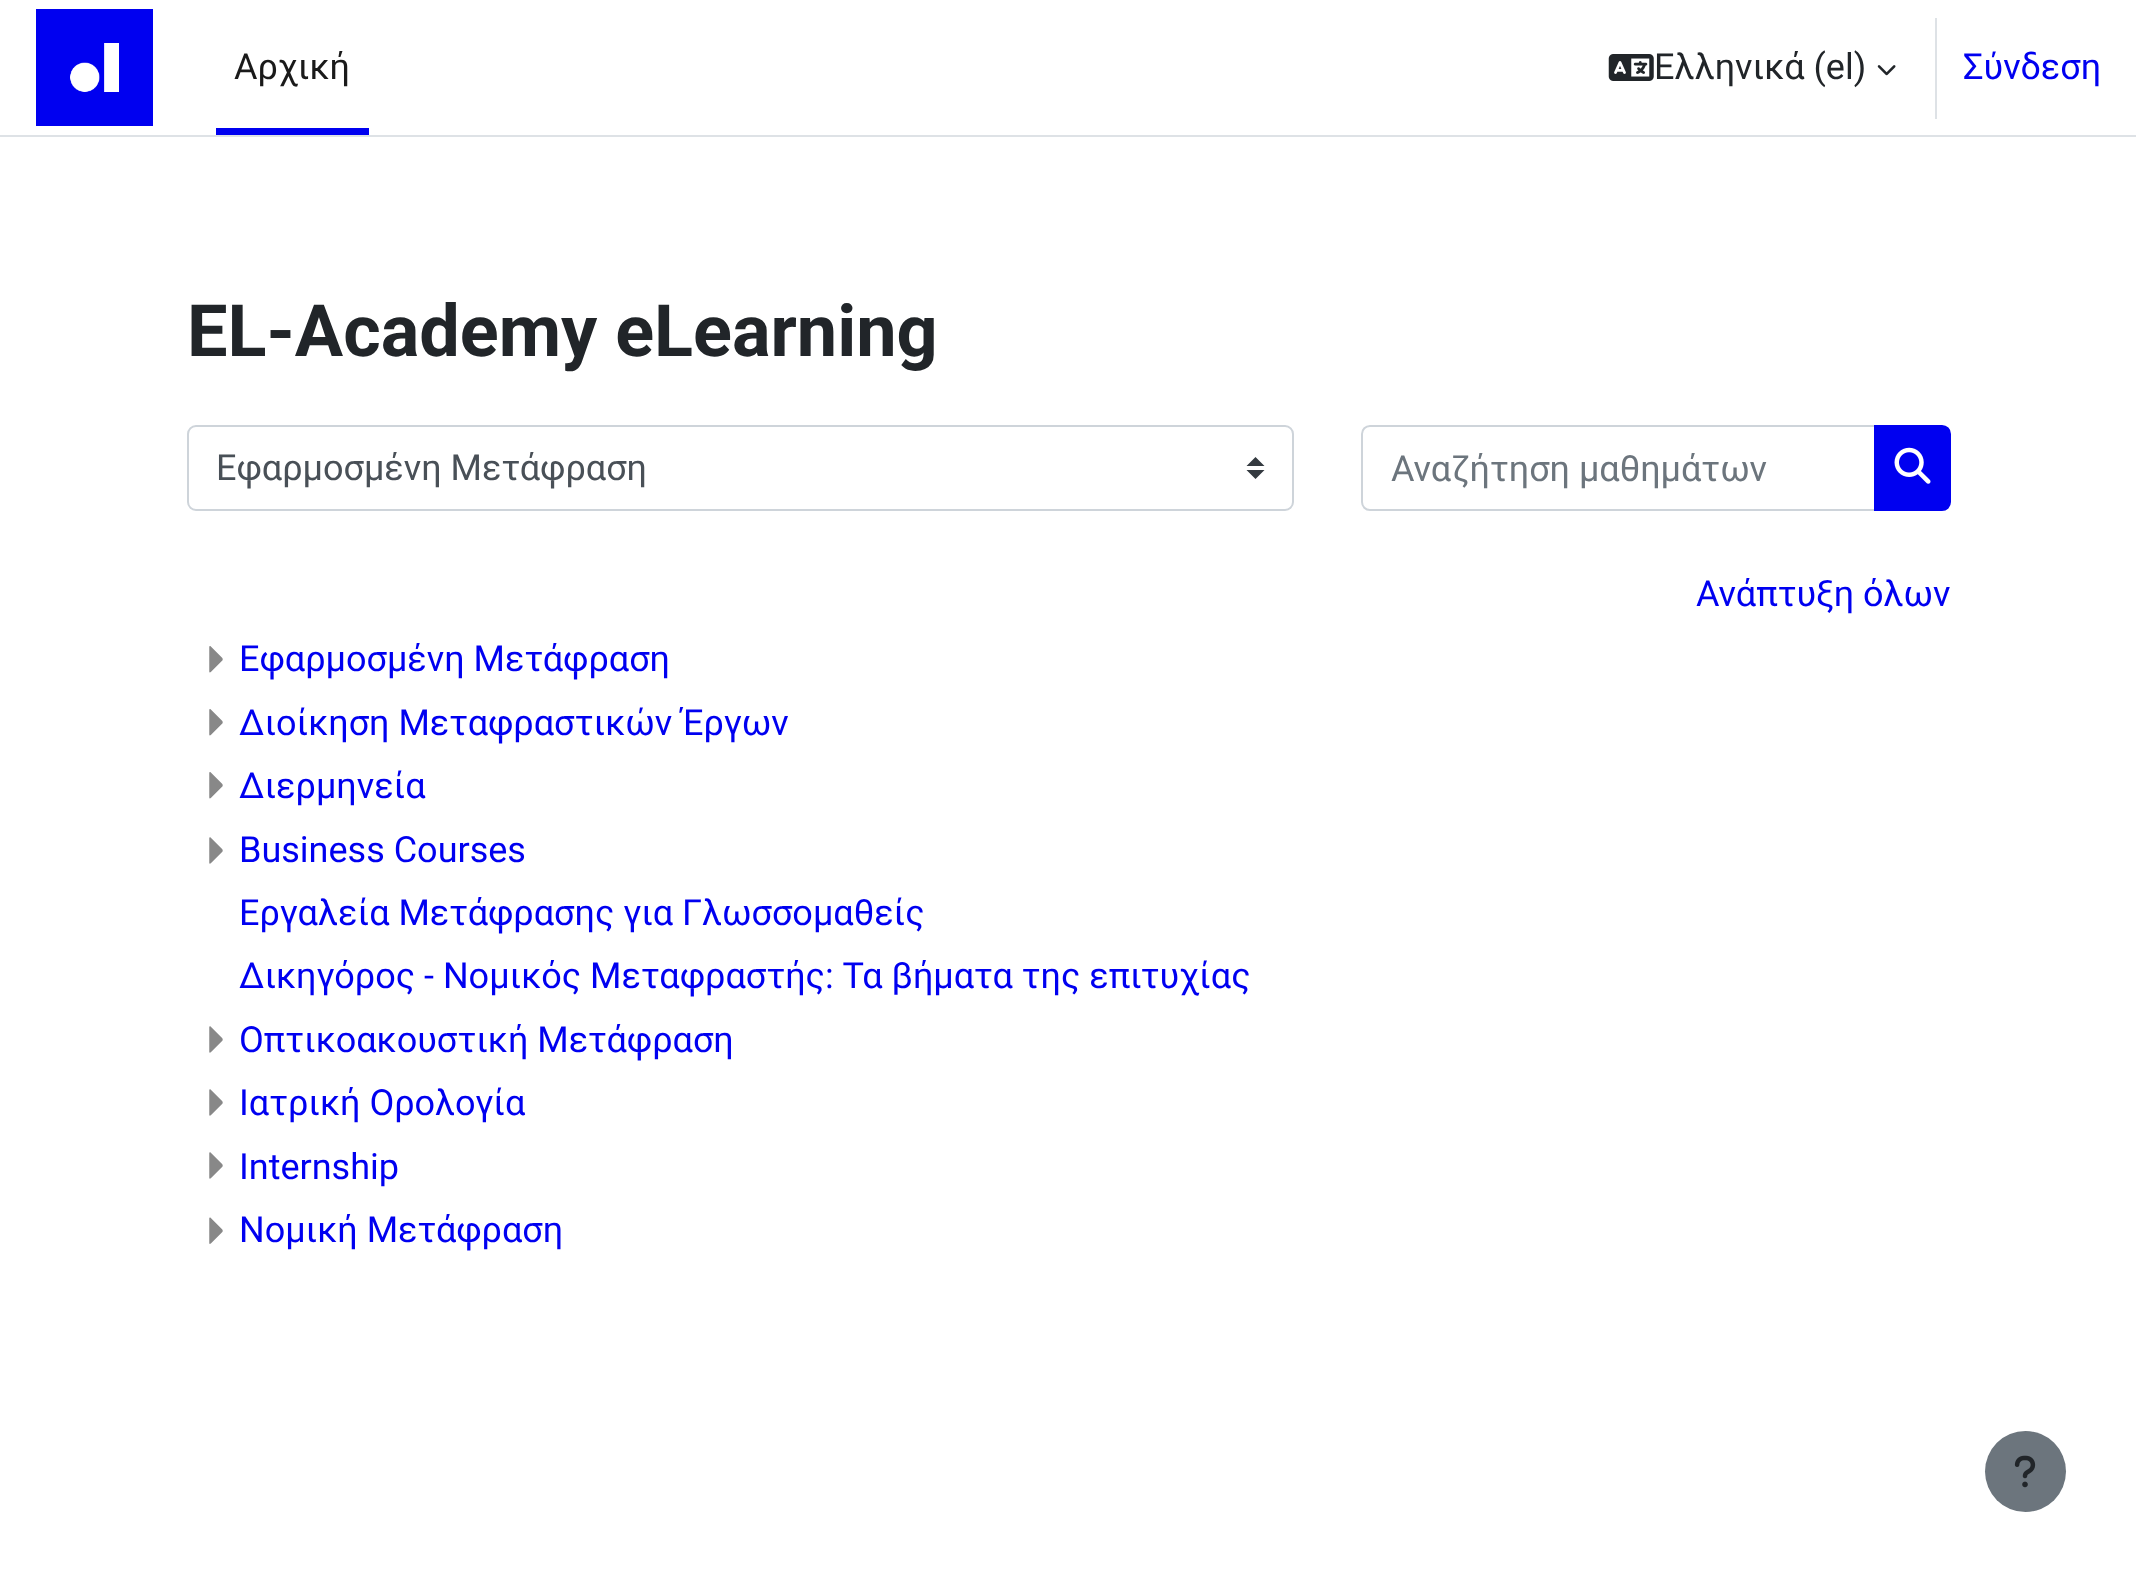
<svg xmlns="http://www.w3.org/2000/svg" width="2136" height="1582">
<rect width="100%" height="100%" fill="#fff"/>
<rect y="135" width="2136" height="2" fill="#dee2e6"/>
<image x="36" y="9" width="117" height="117" href="media/1.png"/>
<rect x="216" y="128" width="153" height="7" fill="#0000f0"/>
<text x="234" y="79" style="font-family:Roboto;font-size:36px;fill:#1a1a1a">Αρχική</text>
<image x="1608" y="54" width="46" height="27" href="media/2.png"/>
<text x="1654" y="79" style="font-family:Roboto;font-size:36px;fill:#212529">Ελληνικά (el)</text>
<image x="1877" y="65" width="19" height="11" href="media/3.png"/>
<rect x="1935" y="18" width="2" height="101" fill="#dee2e6"/>
<text x="1963" y="79" style="font-family:Roboto;font-size:36px;fill:#0000f0">Σύνδεση</text>
<text x="187" y="356" style="font-family:Roboto;font-size:72px;font-weight:bold;fill:#212529">EL-Academy eLearning</text>
<path d="M1255.5 457l-9 9h18zm0 22l-9-9h18z" fill="#343a40"/>
<rect x="188" y="426" width="1105" height="84" rx="8" fill="none" stroke="#ced4da" stroke-width="2"/>
<text x="216" y="480" style="font-family:Roboto;font-size:36px;fill:#495057">Εφαρμοσμένη Μετάφραση</text>
<path d="M1370 426h506v84h-506c-4.5 0-8-3.5-8-8v-68c0-4.5 3.5-8 8-8z" fill="none" stroke="#ced4da" stroke-width="2"/>
<text x="1391" y="481" style="font-family:Roboto;font-size:36px;fill:#6c757d">Αναζήτηση μαθημάτων</text>
<path d="M1875 426h67c4.5 0 8 3.5 8 8v68c0 4.5-3.5 8-8 8h-67z" fill="#0000f0" stroke="#0000f0" stroke-width="2"/>
<image x="1894" y="447" width="37" height="37" href="media/4.png"/>
<text x="1696" y="606" style="font-family:Roboto;font-size:36px;fill:#0000f0">Ανάπτυξη όλων</text>
<image x="209" y="646" width="14" height="27" href="media/5.png"/>
<text x="239" y="671" style="font-family:Roboto;font-size:36px;fill:#0000f0">Εφαρμοσμένη Μετάφραση</text>
<image x="209" y="709" width="14" height="27" href="media/5.png"/>
<text x="239" y="735" style="font-family:Roboto;font-size:36px;fill:#0000f0">Διοίκηση Μεταφραστικών Έργων</text>
<image x="209" y="772" width="14" height="27" href="media/5.png"/>
<text x="239" y="798" style="font-family:Roboto;font-size:36px;fill:#0000f0">Διερμηνεία</text>
<image x="209" y="837" width="14" height="27" href="media/6.png"/>
<text x="239" y="862" style="font-family:Roboto;font-size:36px;fill:#0000f0">Business Courses</text>
<text x="239" y="925" style="font-family:Roboto;font-size:36px;fill:#0000f0">Εργαλεία Μετάφρασης για Γλωσσομαθείς</text>
<text x="239" y="988" style="font-family:Roboto;font-size:36px;fill:#0000f0">Δικηγόρος - Νομικός Μεταφραστής: Τα βήματα της επιτυχίας</text>
<image x="209" y="1026" width="14" height="27" href="media/6.png"/>
<text x="239" y="1052" style="font-family:Roboto;font-size:36px;fill:#0000f0">Οπτικοακουστική Μετάφραση</text>
<image x="209" y="1089" width="14" height="27" href="media/6.png"/>
<text x="239" y="1115" style="font-family:Roboto;font-size:36px;fill:#0000f0">Ιατρική Ορολογία</text>
<image x="209" y="1152" width="14" height="27" href="media/6.png"/>
<text x="239" y="1179" style="font-family:Roboto;font-size:36px;fill:#0000f0">Internship</text>
<image x="209" y="1217" width="14" height="27" href="media/7.png"/>
<text x="239" y="1242" style="font-family:Roboto;font-size:36px;fill:#0000f0">Νομική Μετάφραση</text>
<circle cx="2025.5" cy="1471.5" r="40.5" fill="#6c757d"/>
<image x="2014" y="1455" width="22" height="33" href="media/8.png"/>
</svg>
